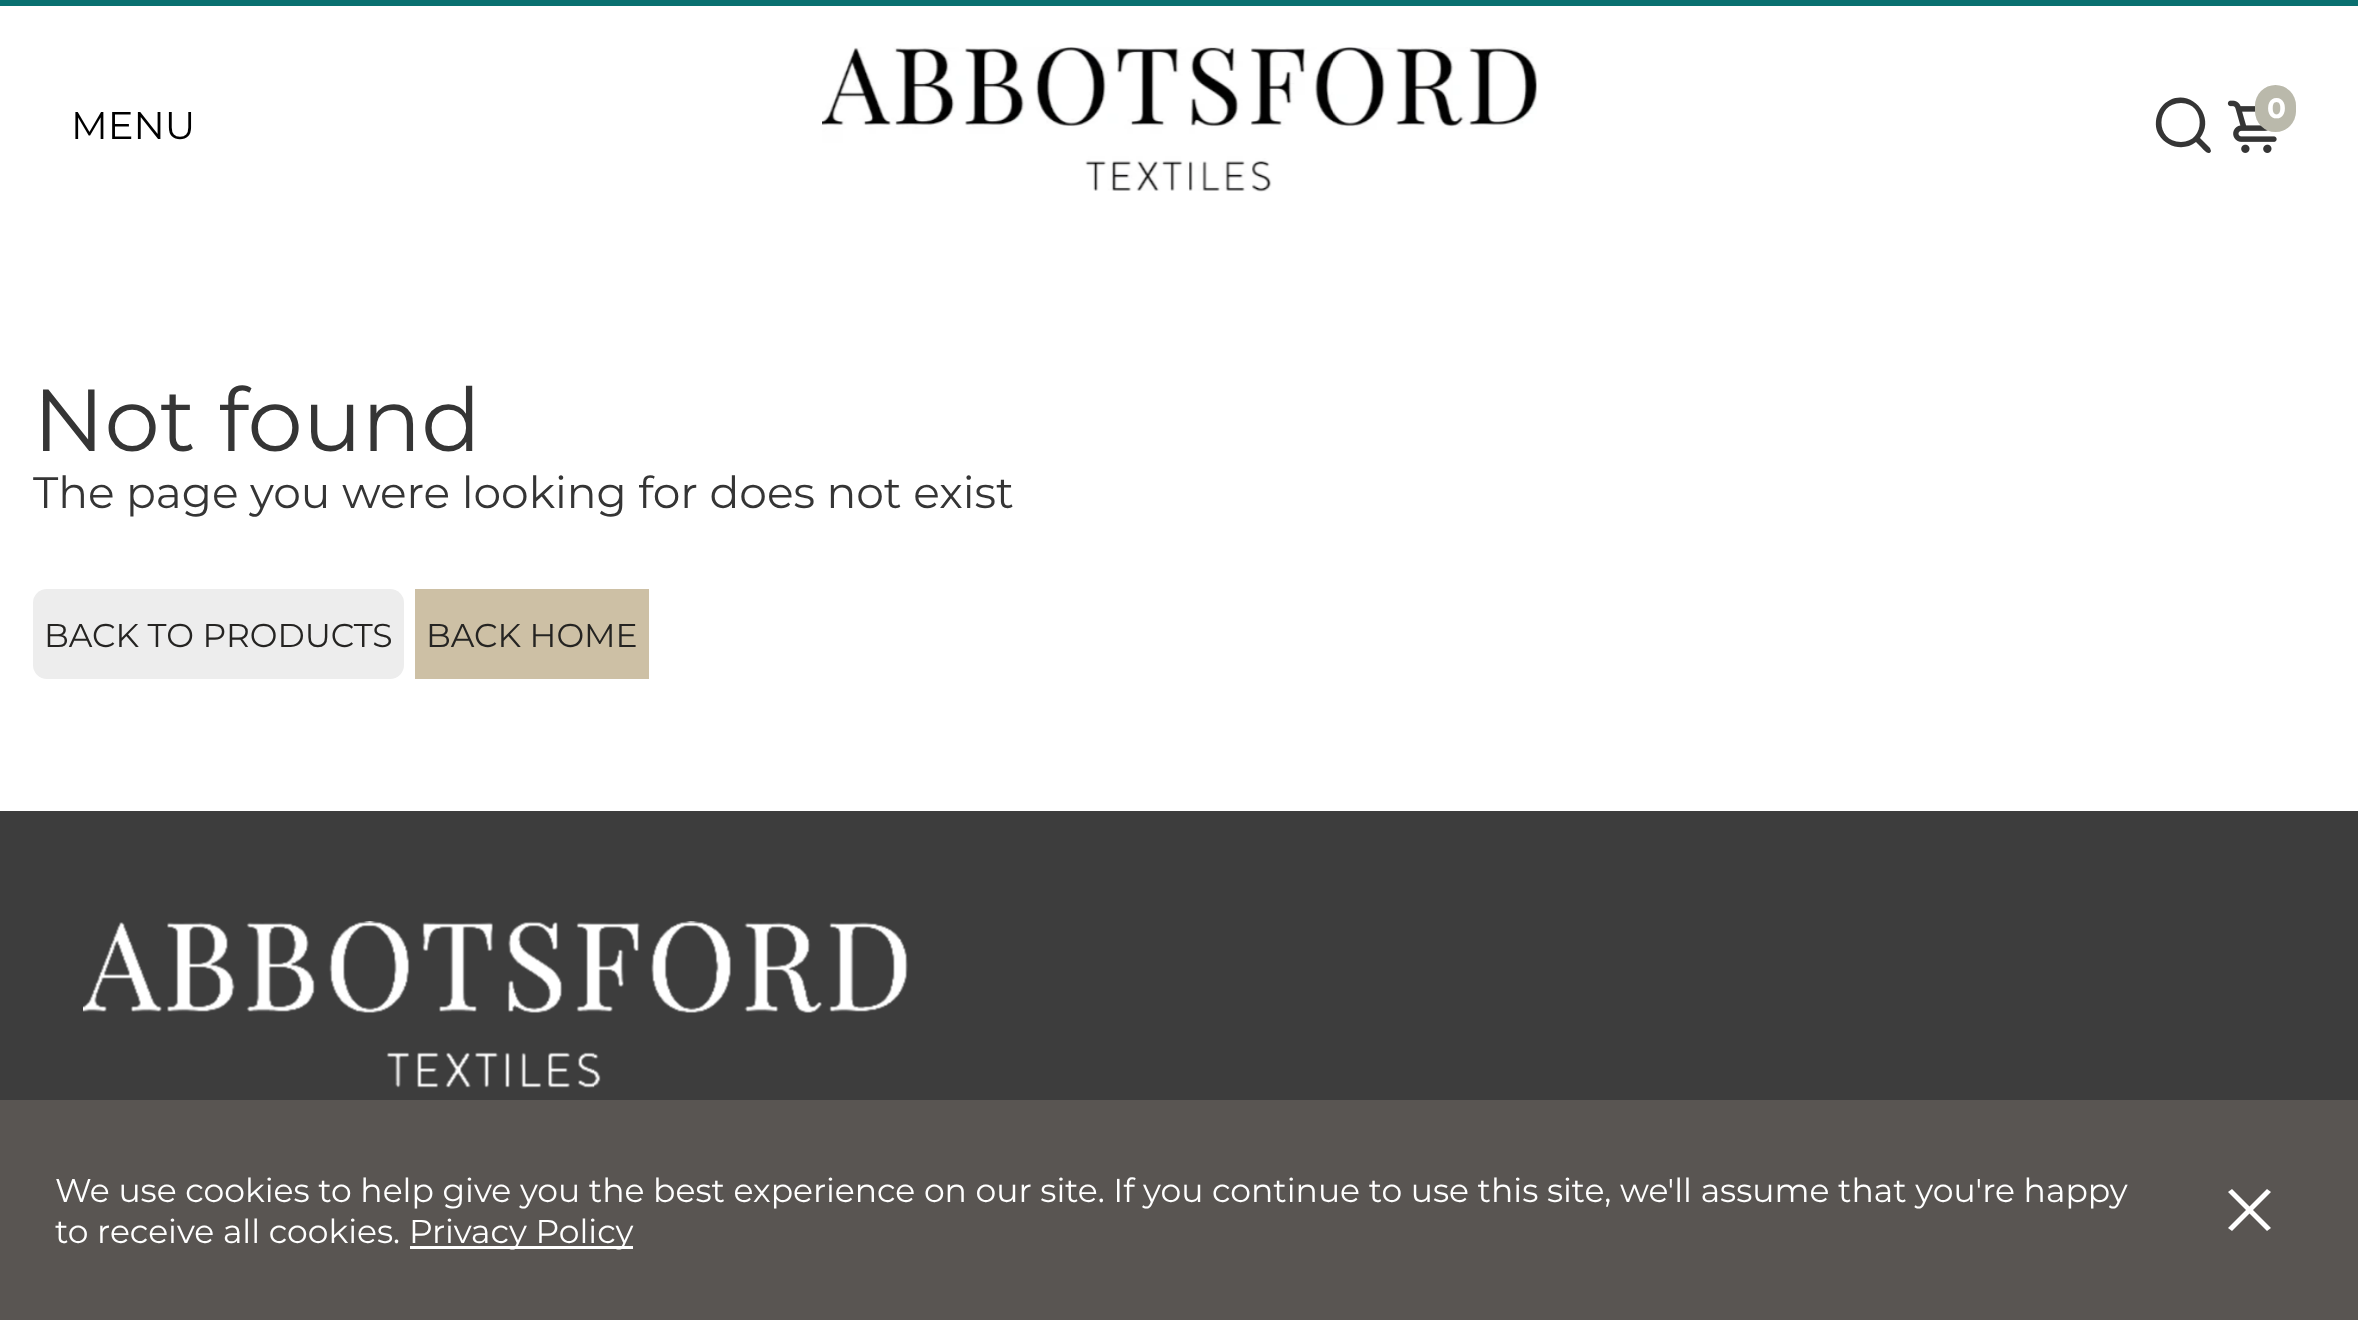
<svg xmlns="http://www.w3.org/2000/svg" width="2358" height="1320">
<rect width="100%" height="100%" fill="#fff"/>
<rect width="2358" height="6" fill="#097070"/>
<image x="822" y="47" width="715" height="145" href="media/1.png"/>
<path d="M2210 148l-10-10c16-20-7-49-30-38c-6 3-10 8-12 13c-3 7-3 16 1 22c8 13 26 16 37 7l5 5c1 1 8 10 10 4zm-29-6c-26 0-26-39 0-39c25 0 25 39 0 39z" fill="#353535"/>
<image x="2227" y="100" width="50" height="53" href="media/2.png"/>
<rect x="2255" y="85" width="41" height="47" rx="20.5" fill="#bab9ab"/>
<text x="2267" y="118" style="font-family:Montserrat;font-size:28px;font-weight:bold;fill:#fff">0</text>
<text x="71" y="139" style="font-family:Montserrat;font-size:38.5px;fill:#000">MENU</text>
<text x="33" y="451" style="font-family:Montserrat;font-size:88px;fill:#353535">Not found</text>
<text x="33" y="508" style="font-family:Montserrat;font-size:44px;fill:#353535">The page you were looking for does not exist</text>
<rect x="33" y="589" width="371" height="90" rx="14" fill="#ededed"/>
<text x="44" y="647" style="font-family:Montserrat;font-size:33px;fill:#252422">BACK TO PRODUCTS</text>
<rect x="415" y="589" width="234" height="90" fill="#cdc0a5"/>
<text x="426" y="647" style="font-family:Montserrat;font-size:33px;fill:#252422">BACK HOME</text>
<rect y="811" width="2358" height="289" fill="#3d3d3d"/>
<image x="83" y="921" width="825" height="167" href="media/3.png"/>
<rect y="1100" width="2358" height="220" fill="#595552"/>
<text x="55" y="1202" style="font-family:Montserrat;font-size:33px;fill:#fff">We use cookies to help give you the best experience on our site. If you continue to use this site, we'll assume that you're happy</text>
<text x="55" y="1243" style="font-family:Montserrat;font-size:33px;fill:#fff">to receive all cookies.</text>
<rect x="410" y="1246" width="223" height="3" fill="#fff"/>
<text x="409" y="1243" style="font-family:Montserrat;font-size:33px;fill:#fff">Privacy Policy</text>
<path d="M2232 1189l39 39l-4 3l-39-39z" fill="#fff"/>
<path d="M2271 1192l-39 39l-4-3l39-39z" fill="#fff"/>
</svg>
